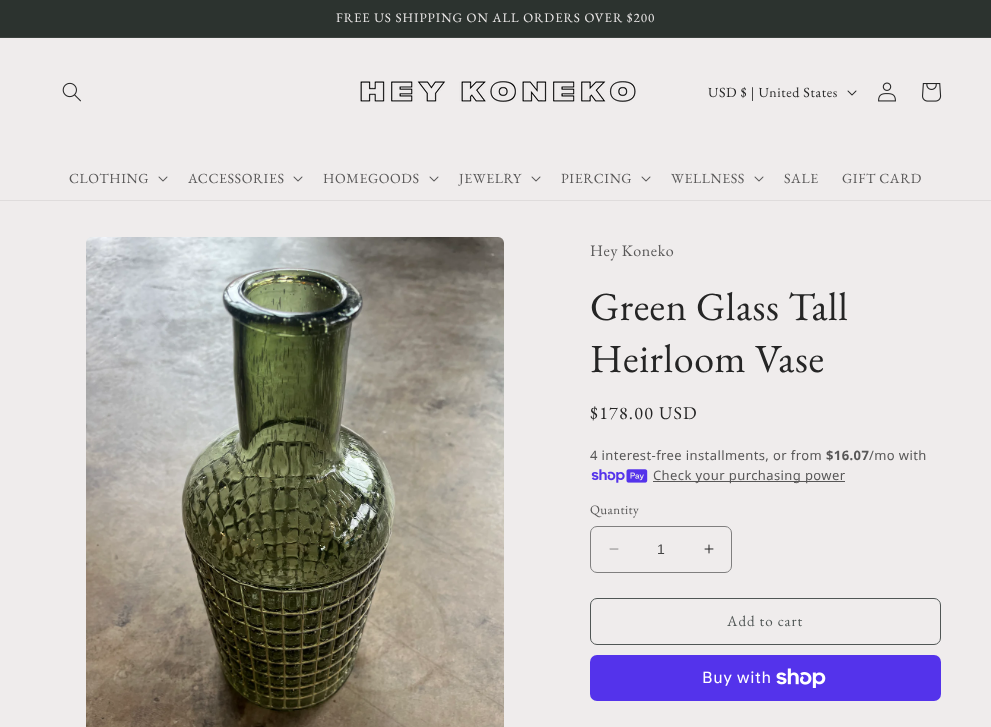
<svg xmlns="http://www.w3.org/2000/svg" width="991" height="727">
<rect width="100%" height="100%" fill="#efecec"/>
<rect width="991" height="37" fill="#2c332f"/>
<rect y="37" width="991" height="1" fill="#3c423e"/>
<text x="336" y="22" style="font-family:EB Garamond;font-size:13px;letter-spacing:1px;fill:#efecec">FREE US SHIPPING ON ALL ORDERS OVER $200</text>
<rect y="200" width="991" height="1" fill="#dfdcdc"/>
<image x="62" y="82" width="19" height="20" href="media/1.png"/>
<image x="360" y="81" width="276" height="21" href="media/2.png"/>
<text x="708" y="97" style="font-family:EB Garamond;font-size:14px;letter-spacing:0.6px;fill:#252525">USD $ | United States</text>
<image x="847" y="90" width="10" height="6" href="media/3.png"/>
<image x="878" y="82" width="18" height="20" href="media/4.png"/>
<image x="922" y="83" width="20" height="19" href="media/5.png"/>
<text x="69" y="183" style="font-family:EB Garamond;font-size:14px;letter-spacing:0.6px;fill:#585757">CLOTHING</text>
<image x="158" y="176" width="10" height="6" href="media/6.png"/>
<text x="188" y="183" style="font-family:EB Garamond;font-size:14px;letter-spacing:0.6px;fill:#585757">ACCESSORIES</text>
<image x="293" y="176" width="10" height="6" href="media/6.png"/>
<text x="323" y="183" style="font-family:EB Garamond;font-size:14px;letter-spacing:0.6px;fill:#585757">HOMEGOODS</text>
<image x="429" y="176" width="10" height="6" href="media/6.png"/>
<text x="459" y="183" style="font-family:EB Garamond;font-size:14px;letter-spacing:0.6px;fill:#585757">JEWELRY</text>
<image x="531" y="176" width="10" height="6" href="media/6.png"/>
<text x="561" y="183" style="font-family:EB Garamond;font-size:14px;letter-spacing:0.6px;fill:#585757">PIERCING</text>
<image x="641" y="176" width="10" height="6" href="media/6.png"/>
<text x="671" y="183" style="font-family:EB Garamond;font-size:14px;letter-spacing:0.6px;fill:#585757">WELLNESS</text>
<image x="754" y="176" width="10" height="6" href="media/6.png"/>
<text x="784" y="183" style="font-family:EB Garamond;font-size:14px;letter-spacing:0.6px;fill:#585757">SALE</text>
<text x="842" y="183" style="font-family:EB Garamond;font-size:14px;letter-spacing:0.6px;fill:#585757">GIFT CARD</text>
<image x="86" y="237" width="418" height="490" href="media/7.png"/>
<text x="590" y="256" style="font-family:EB Garamond;font-size:16px;letter-spacing:0.6px;fill:#585757">Hey Koneko</text>
<text x="590" y="320" style="font-family:EB Garamond;font-size:40px;letter-spacing:0.6px;fill:#252525">Green Glass Tall</text>
<text x="590" y="372" style="font-family:EB Garamond;font-size:40px;letter-spacing:0.6px;fill:#252525">Heirloom Vase</text>
<text x="590" y="419" style="font-family:EB Garamond;font-size:18px;letter-spacing:1.25px;fill:#252525">$178.00 USD</text>
<text x="590" y="460" style="font-family:Noto Sans;font-size:13px;letter-spacing:0.4px;fill:#585757">4 interest-free installments, or from</text>
<text x="826" y="460" style="font-family:Noto Sans;font-size:13px;font-weight:bold;letter-spacing:0.4px;fill:#585757">$16.07</text>
<text x="869" y="460" style="font-family:Noto Sans;font-size:13px;letter-spacing:0.4px;fill:#585757">/mo with</text>
<image x="591" y="469" width="57" height="14" href="media/8.png"/>
<rect x="653" y="481" width="192" height="1" fill="#585757"/>
<text x="653" y="480" style="font-family:Noto Sans;font-size:13px;letter-spacing:0.4px;fill:#585757">Check your purchasing power</text>
<text x="590" y="514" style="font-family:EB Garamond;font-size:13px;letter-spacing:0.4px;fill:#585757">Quantity</text>
<image x="609" y="548" width="10" height="2" href="media/9.png"/>
<image x="704" y="544" width="10" height="10" href="media/10.png"/>
<rect x="590.5" y="526.5" width="141" height="46" rx="6.5" fill="none" stroke="#807f7f"/>
<text x="657" y="554" style="font-family:Liberation Sans;font-size:14px;fill:#434343">1</text>
<rect x="590.5" y="598.5" width="350" height="46" rx="6.5" fill="none" stroke="#505655"/>
<text x="727" y="626" style="font-family:EB Garamond;font-size:15px;letter-spacing:1px;fill:#505655">Add to cart</text>
<rect x="590" y="655" width="351" height="46" rx="7" fill="#5433eb"/>
<text x="702" y="683" style="font-family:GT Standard;font-size:16px;letter-spacing:0.6px;fill:#fff">Buy with</text>
<image x="776" y="668" width="50" height="20" href="media/11.png"/>
</svg>
